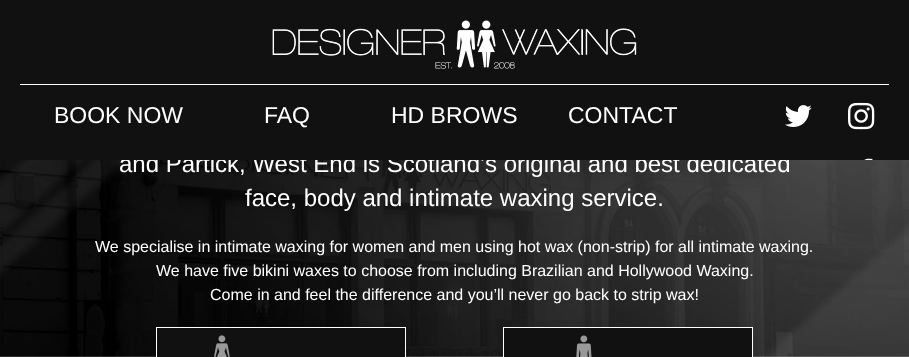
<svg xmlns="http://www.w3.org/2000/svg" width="909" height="357">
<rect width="100%" height="100%" fill="#fff"/>
<image x="0" y="160" width="909" height="197" href="media/1.png"/>
<text x="119" y="172" style="font-family:Liberation Sans;font-size:24px;fill:#fff">and Partick, West End is Scotland’s original and best dedicated</text>
<rect width="909" height="160" fill="#111"/>
<image x="272" y="20" width="365" height="49" href="media/2.png"/>
<rect x="20" y="84" width="869" height="1" fill="#fff"/>
<text x="54" y="123" style="font-family:Liberation Sans;font-size:23px;fill:#fff">BOOK NOW</text>
<text x="264" y="123" style="font-family:Liberation Sans;font-size:23px;fill:#fff">FAQ</text>
<text x="391" y="123" style="font-family:Liberation Sans;font-size:23px;fill:#fff">HD BROWS</text>
<text x="568" y="123" style="font-family:Liberation Sans;font-size:23px;fill:#fff">CONTACT</text>
<image x="785" y="105" width="27" height="22" href="media/3.png"/>
<image x="848" y="102" width="27" height="28" href="media/4.png"/>
<image x="864" y="158" width="9" height="2" href="media/5.png"/>
<text x="245" y="206" style="font-family:Liberation Sans;font-size:24px;fill:#fff">face, body and intimate waxing service.</text>
<text x="95" y="252" style="font-family:Liberation Sans;font-size:16px;fill:#fff">We specialise in intimate waxing for women and men using hot wax (non-strip) for all intimate waxing.</text>
<text x="156" y="276" style="font-family:Liberation Sans;font-size:16px;fill:#fff">We have five bikini waxes to choose from including Brazilian and Hollywood Waxing.</text>
<text x="210" y="300" style="font-family:Liberation Sans;font-size:16px;fill:#fff">Come in and feel the difference and you’ll never go back to strip wax!</text>
<rect x="156.5" y="327.5" width="249" height="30" fill="#111" stroke="#fff"/>
<image x="214" y="335" width="16" height="22" href="media/6.png"/>
<rect x="503.5" y="327.5" width="249" height="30" fill="#111" stroke="#fff"/>
<image x="576" y="335" width="16" height="22" href="media/7.png"/>
</svg>
